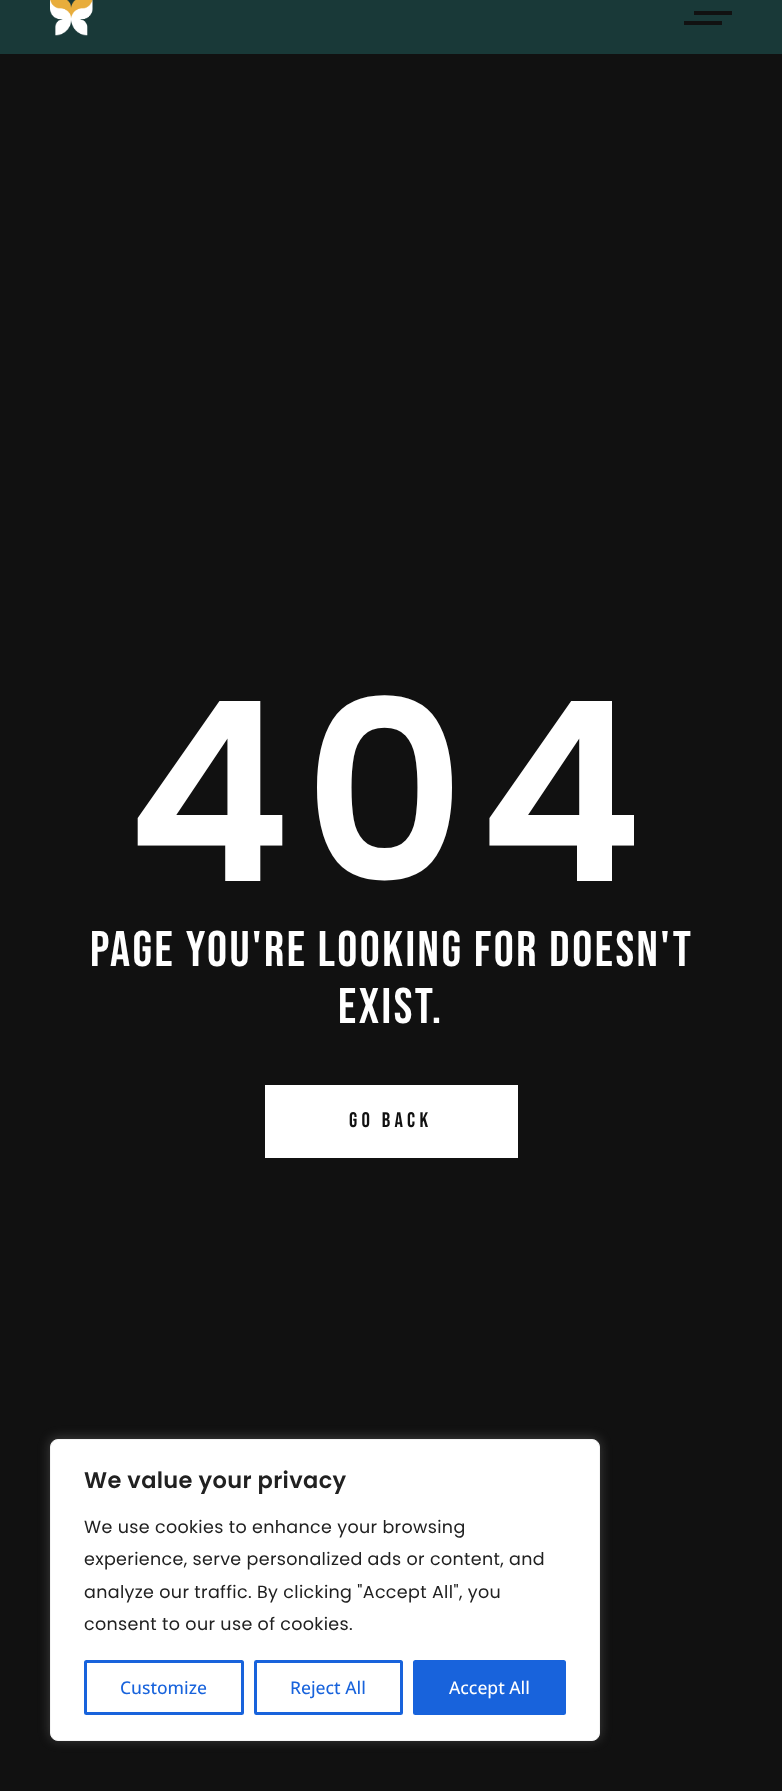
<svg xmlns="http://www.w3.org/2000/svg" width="782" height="1791">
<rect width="100%" height="100%" fill="#111"/>
<rect width="782" height="54" fill="#193938"/>
<image x="50" y="0" width="43" height="36" href="media/1.png"/>
<path d="M694 15v-4h38v4zm28 10h-38v-4h38z" fill="#111" fill-rule="evenodd"/>
<text x="126" y="881" style="font-family:Poppins;font-size:250px;font-weight:600;letter-spacing:12.5px;fill:#fff">404</text>
<text x="90" y="966" style="font-family:Bebas Neue;font-size:50px;letter-spacing:2.5px;fill:#fff">PAGE YOU'RE LOOKING FOR DOESN'T</text>
<text x="338" y="1023" style="font-family:Bebas Neue;font-size:50px;letter-spacing:2.5px;fill:#fff">EXIST.</text>
<rect x="265" y="1085" width="253" height="73" fill="#fff"/>
<text x="349" y="1127" style="font-family:Bebas Neue;font-size:21px;letter-spacing:4.25px;fill:#111">GO BACK</text>
<rect x="50" y="1438" width="550" height="302" rx="8" fill="#acabab4d" filter="blur(6px)"/>
<rect x="50.5" y="1439.5" width="549" height="301" rx="7.5" fill="#fff" stroke="#f4f4f4"/>
<text x="84" y="1488" style="font-family:Poppins;font-size:22.5px;font-weight:600;letter-spacing:0.35px;fill:#212121">We value your privacy</text>
<text x="84" y="1533" style="font-family:Poppins;font-size:17.5px;letter-spacing:0.35px;fill:#212121">We use cookies to enhance your browsing</text>
<text x="84" y="1565" style="font-family:Poppins;font-size:17.5px;letter-spacing:0.35px;fill:#212121">experience, serve personalized ads or content, and</text>
<text x="84" y="1598" style="font-family:Poppins;font-size:17.5px;letter-spacing:0.35px;fill:#212121">analyze our traffic. By clicking "Accept All", you</text>
<text x="84" y="1630" style="font-family:Poppins;font-size:17.5px;letter-spacing:0.35px;fill:#212121">consent to our use of cookies.</text>
<rect x="85.5" y="1661.5" width="157" height="52" rx="1" fill="none" stroke="#1863dc" stroke-width="3"/>
<text x="120" y="1694" style="font-family:Open Sans;font-size:17.5px;font-weight:500;fill:#1863dc">Customize</text>
<rect x="255.5" y="1661.5" width="146" height="52" rx="1" fill="none" stroke="#1863dc" stroke-width="3"/>
<text x="290" y="1694" style="font-family:Open Sans;font-size:17.5px;font-weight:500;fill:#1863dc">Reject All</text>
<rect x="414.5" y="1661.5" width="150" height="52" rx="1" fill="#1863dc" stroke="#1863dc" stroke-width="3"/>
<text x="449" y="1694" style="font-family:Open Sans;font-size:17.5px;font-weight:500;fill:#fff">Accept All</text>
</svg>
